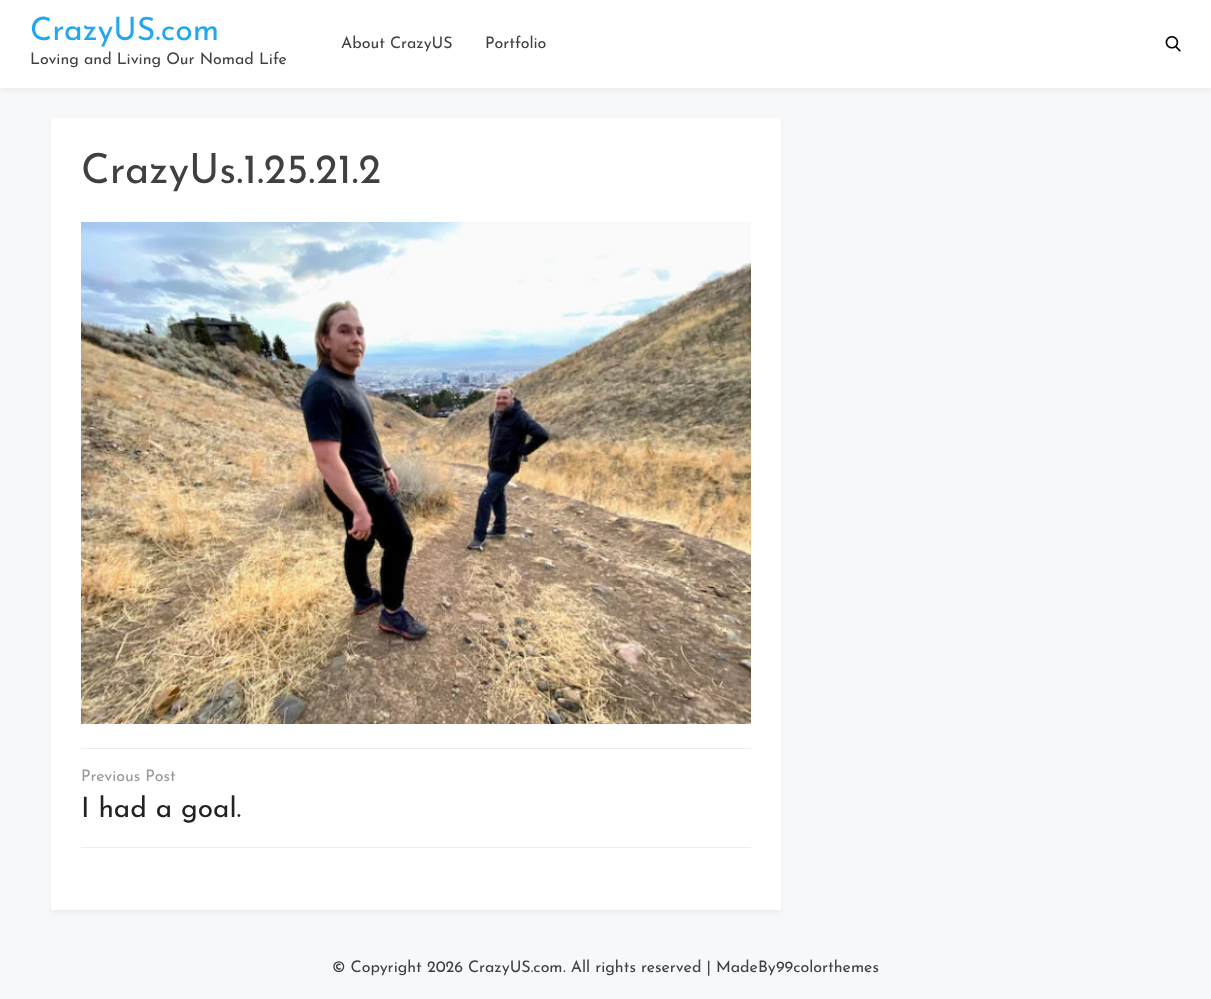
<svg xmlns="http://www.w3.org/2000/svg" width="1211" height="999">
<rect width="100%" height="100%" fill="#f7f8fa"/>
<rect y="3" width="1211" height="88" fill="#eee" filter="blur(2px)"/>
<rect width="1211" height="88" fill="#fff"/>
<text x="30" y="40" style="font-family:Josefin Sans;font-size:32px;fill:#22a7f0">CrazyUS.com</text>
<text x="30" y="64" style="font-family:Josefin Sans;font-size:16px;fill:#404040">Loving and Living Our Nomad Life</text>
<text x="341" y="48" style="font-family:Josefin Sans;font-size:16px;fill:#404040">About CrazyUS</text>
<text x="485" y="48" style="font-family:Josefin Sans;font-size:16px;fill:#404040">Portfolio</text>
<image x="1165" y="36" width="16" height="16" href="media/1.png"/>
<rect x="51" y="121" width="730" height="792" fill="#eee" filter="blur(2px)"/>
<rect x="51" y="118" width="730" height="792" fill="#fff"/>
<text x="81" y="183" style="font-family:Josefin Sans;font-size:41.5px;fill:#404040">CrazyUs.1.25.21.2</text>
<image x="81" y="222" width="670" height="502" href="media/2.png"/>
<rect x="81" y="748" width="670" height="1" fill="#ececec"/>
<rect x="81" y="847" width="670" height="1" fill="#ececec"/>
<text x="81" y="781" style="font-family:Josefin Sans;font-size:16px;fill:#999">Previous Post</text>
<text x="81" y="817" style="font-family:Josefin Sans;font-size:28px;fill:#222">I had a goal.</text>
<text x="332" y="972" style="font-family:Josefin Sans;font-size:16px;fill:#404040">© Copyright 2026</text>
<text x="468" y="972" style="font-family:Josefin Sans;font-size:16px;fill:#404040">CrazyUS.com</text>
<text x="563" y="972" style="font-family:Josefin Sans;font-size:16px;fill:#404040">. All rights reserved | MadeBy</text>
<text x="776" y="972" style="font-family:Josefin Sans;font-size:16px;fill:#404040">99colorthemes</text>
</svg>
